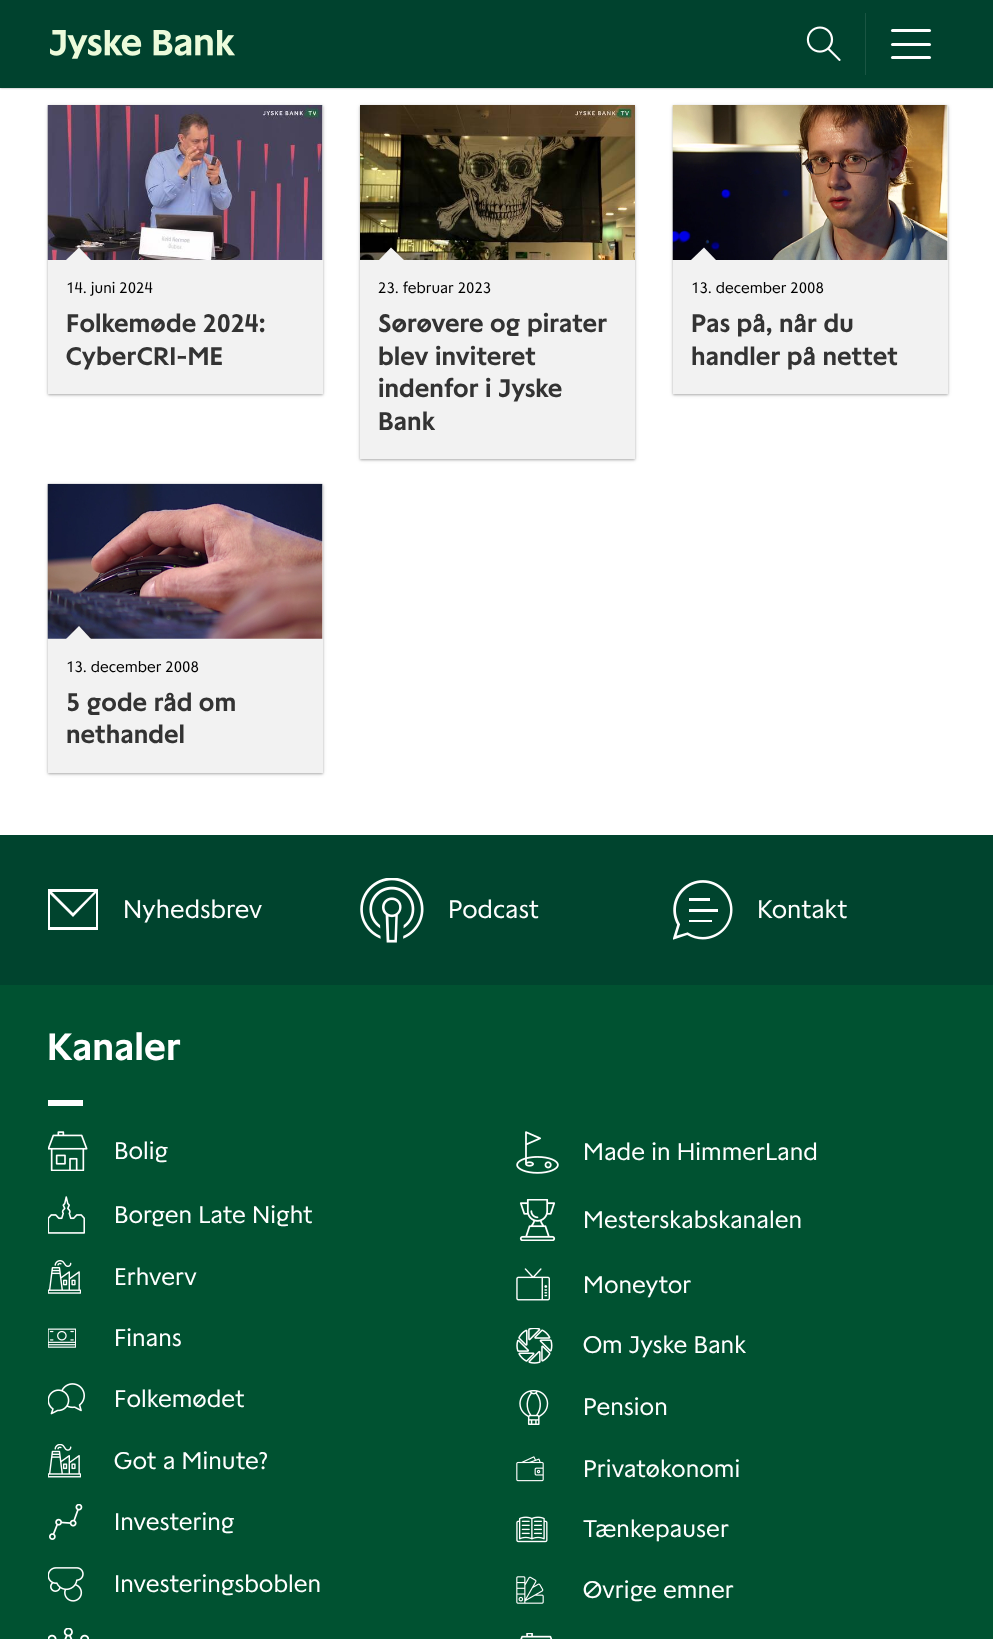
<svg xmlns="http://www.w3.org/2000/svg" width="993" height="1639">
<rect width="100%" height="100%" fill="#fff"/>
<rect width="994" height="88" fill="#9b9da0" filter="blur(1px)"/>
<rect width="993" height="88" fill="#00422e"/>
<image x="50" y="30" width="185" height="29" href="media/1.png"/>
<image x="806" y="26" width="35" height="35" href="media/2.png"/>
<rect x="865" y="13" width="1" height="62" fill="#1a5543"/>
<rect x="891" y="29" width="40" height="3" rx="1.5" fill="#fff"/>
<rect x="891" y="43" width="40" height="3" rx="1.5" fill="#fff"/>
<rect x="891" y="56" width="40" height="3" rx="1.5" fill="#fff"/>
<rect x="48" y="106" width="275" height="289" fill="#0000003d" filter="blur(1px)"/>
<rect x="48" y="106" width="275" height="289" fill="#0000001f" filter="blur(2px)"/>
<rect x="48" y="105" width="275" height="289" fill="#f2f2f2"/>
<image x="47" y="105" width="276" height="155" href="media/3.png"/>
<path d="M91 260h-25l13-12.5z" fill="#f2f2f2"/>
<text x="66" y="293" style="font-family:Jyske;font-size:15px;fill:#000">14. juni 2024</text>
<text x="66" y="332" style="font-family:Jyske;font-size:25px;font-weight:bold;fill:#333">Folkemøde 2024:</text>
<text x="66" y="365" style="font-family:Jyske;font-size:25px;font-weight:bold;fill:#333">CyberCRI-ME</text>
<rect x="360" y="106" width="275" height="354" fill="#0000003d" filter="blur(1px)"/>
<rect x="360" y="106" width="275" height="354" fill="#0000001f" filter="blur(2px)"/>
<rect x="360" y="260" width="275" height="199" fill="#f2f2f2"/>
<image x="360" y="105" width="275" height="155" href="media/4.png"/>
<path d="M404 260h-25l12-12.5z" fill="#f2f2f2"/>
<text x="378" y="293" style="font-family:Jyske;font-size:15px;fill:#000">23. februar 2023</text>
<text x="378" y="332" style="font-family:Jyske;font-size:25px;font-weight:bold;fill:#333">Sørøvere og pirater</text>
<text x="378" y="365" style="font-family:Jyske;font-size:25px;font-weight:bold;fill:#333">blev inviteret</text>
<text x="378" y="397" style="font-family:Jyske;font-size:25px;font-weight:bold;fill:#333">indenfor i Jyske</text>
<text x="378" y="430" style="font-family:Jyske;font-size:25px;font-weight:bold;fill:#333">Bank</text>
<rect x="673" y="106" width="275" height="289" fill="#0000003d" filter="blur(1px)"/>
<rect x="673" y="106" width="275" height="289" fill="#0000001f" filter="blur(2px)"/>
<rect x="673" y="105" width="275" height="289" fill="#f2f2f2"/>
<image x="672" y="105" width="276" height="155" href="media/5.png"/>
<path d="M716 260h-25l13-12.5z" fill="#f2f2f2"/>
<text x="691" y="293" style="font-family:Jyske;font-size:15px;fill:#000">13. december 2008</text>
<text x="691" y="332" style="font-family:Jyske;font-size:25px;font-weight:bold;fill:#333">Pas på, når du</text>
<text x="691" y="365" style="font-family:Jyske;font-size:25px;font-weight:bold;fill:#333">handler på nettet</text>
<rect x="48" y="485" width="275" height="289" fill="#0000003d" filter="blur(1px)"/>
<rect x="48" y="485" width="275" height="289" fill="#0000001f" filter="blur(2px)"/>
<rect x="48" y="484" width="275" height="289" fill="#f2f2f2"/>
<image x="47" y="483" width="276" height="156" href="media/6.png"/>
<path d="M91 639h-25l13-13z" fill="#f2f2f2"/>
<text x="66" y="672" style="font-family:Jyske;font-size:15px;fill:#000">13. december 2008</text>
<text x="66" y="711" style="font-family:Jyske;font-size:25px;font-weight:bold;fill:#333">5 gode råd om</text>
<text x="66" y="743" style="font-family:Jyske;font-size:25px;font-weight:bold;fill:#333">nethandel</text>
<rect y="985" width="993" height="654" fill="#005231"/>
<rect y="835" width="993" height="150" fill="#00442e"/>
<path d="M48 889v41h50v-41zm46 3l-21 21l-21-21zm-44 35v-33l23 23l23-24v34z" fill="#fff"/>
<text x="123" y="918" style="font-family:Jyske;font-size:25px;fill:#fff">Nyhedsbrev</text>
<image x="360" y="878" width="64" height="65" href="media/7.png"/>
<text x="448" y="918" style="font-family:Jyske;font-size:25px;fill:#fff">Podcast</text>
<image x="673" y="880" width="60" height="60" href="media/8.png"/>
<text x="757" y="918" style="font-family:Jyske;font-size:25px;fill:#fff">Kontakt</text>
<text x="47" y="1060" style="font-family:Jyske;font-size:37.5px;font-weight:bold;fill:#fff">Kanaler</text>
<rect x="48" y="1100" width="35" height="6" fill="#fff"/>
<image x="48" y="1131" width="40" height="40" href="media/9.png"/>
<text x="114" y="1159" style="font-family:Jyske;font-size:23.75px;fill:#fff">Bolig</text>
<image x="48" y="1196" width="37" height="38" href="media/10.png"/>
<text x="114" y="1223" style="font-family:Jyske;font-size:23.75px;fill:#fff">Borgen Late Night</text>
<image x="48" y="1260" width="33" height="34" href="media/11.png"/>
<text x="114" y="1285" style="font-family:Jyske;font-size:23.75px;fill:#fff">Erhverv</text>
<image x="48" y="1328" width="28" height="20" href="media/12.png"/>
<text x="114" y="1346" style="font-family:Jyske;font-size:23.75px;fill:#fff">Finans</text>
<image x="48" y="1383" width="37" height="32" href="media/13.png"/>
<text x="114" y="1407" style="font-family:Jyske;font-size:23.75px;fill:#fff">Folkemødet</text>
<image x="48" y="1444" width="33" height="34" href="media/14.png"/>
<text x="114" y="1469" style="font-family:Jyske;font-size:23.75px;fill:#fff">Got a Minute?</text>
<image x="49" y="1504" width="34" height="36" href="media/15.png"/>
<text x="114" y="1530" style="font-family:Jyske;font-size:23.75px;fill:#fff">Investering</text>
<image x="48" y="1567" width="36" height="35" href="media/16.png"/>
<text x="114" y="1592" style="font-family:Jyske;font-size:23.75px;fill:#fff">Investeringsboblen</text>
<image x="48" y="1628" width="41" height="11" href="media/17.png"/>
<image x="516" y="1131" width="43" height="43" href="media/18.png"/>
<text x="583" y="1160" style="font-family:Jyske;font-size:23.75px;fill:#fff">Made in HimmerLand</text>
<image x="519" y="1199" width="37" height="42" href="media/19.png"/>
<text x="583" y="1228" style="font-family:Jyske;font-size:23.75px;fill:#fff">Mesterskabskanalen</text>
<image x="516" y="1268" width="34" height="33" href="media/20.png"/>
<text x="583" y="1293" style="font-family:Jyske;font-size:23.75px;fill:#fff">Moneytor</text>
<image x="516" y="1328" width="37" height="36" href="media/21.png"/>
<text x="583" y="1353" style="font-family:Jyske;font-size:23.75px;fill:#fff">Om Jyske Bank</text>
<image x="519" y="1390" width="30" height="35" href="media/22.png"/>
<text x="583" y="1415" style="font-family:Jyske;font-size:23.75px;fill:#fff">Pension</text>
<image x="516" y="1456" width="28" height="26" href="media/23.png"/>
<text x="583" y="1477" style="font-family:Jyske;font-size:23.75px;fill:#fff">Privatøkonomi</text>
<image x="516" y="1516" width="32" height="27" href="media/24.png"/>
<text x="583" y="1537" style="font-family:Jyske;font-size:23.75px;fill:#fff">Tænkepauser</text>
<image x="516" y="1576" width="28" height="28" href="media/25.png"/>
<text x="583" y="1598" style="font-family:Jyske;font-size:23.75px;fill:#fff">Øvrige emner</text>
<image x="520" y="1633" width="33" height="6" href="media/26.png"/>
</svg>
